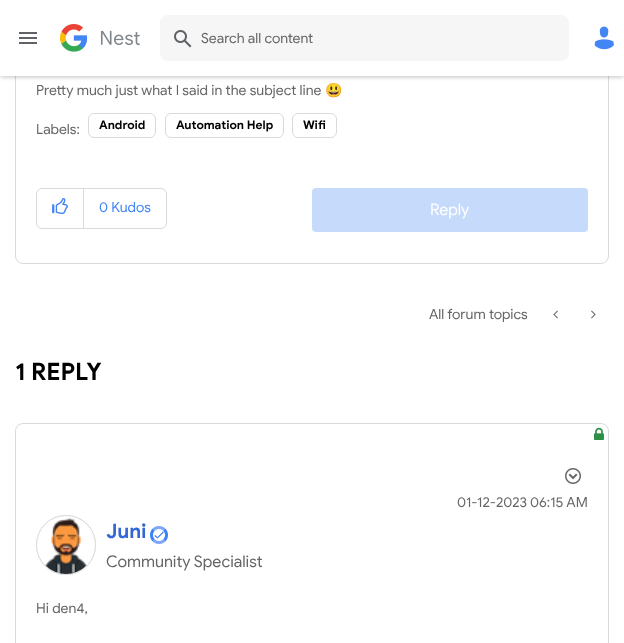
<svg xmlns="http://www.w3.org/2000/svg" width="624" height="643">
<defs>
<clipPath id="clip1"><path d="M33 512h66v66h-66zm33 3c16.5 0 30 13.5 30 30c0 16.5-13.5 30-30 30c-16.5 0-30-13.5-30-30c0-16.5 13.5-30 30-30z" clip-rule="evenodd"/></clipPath>
</defs>
<rect width="100%" height="100%" fill="#fff"/>
<rect x="15.5" y="-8.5" width="593" height="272" rx="7.5" fill="none" stroke="#dadada"/>
<rect x="1" y="3" width="622" height="74" fill="#00000040" filter="blur(2px)"/>
<rect width="624" height="76" fill="#fff"/>
<image x="19" y="32" width="18" height="12" href="media/1.png"/>
<image x="60" y="24" width="80" height="28" href="media/2.png"/>
<rect x="160" y="15" width="409" height="46" rx="8" fill="#f6f6f6"/>
<image x="174" y="30" width="18" height="18" href="media/3.png"/>
<text x="201" y="43" style="font-family:Google Sans;font-size:14px;fill:#666">Search all content</text>
<image x="594" y="26" width="20" height="24" href="media/4.png"/>
<text x="36" y="95" style="font-family:Google Sans;font-size:14px;fill:#666">Pretty much just what I said in the subject line</text>
<text x="325" y="95" style="font-family:Noto Color Emoji;font-size:14px;fill:#666">😃</text>
<text x="36" y="134" style="font-family:Google Sans;font-size:14px;fill:#666">Labels:</text>
<rect x="88.5" y="113.5" width="67" height="24" rx="5.5" fill="none" stroke="#dadada"/>
<text x="99" y="129" style="font-family:Google Sans;font-size:12px;font-weight:bold;fill:#000">Android</text>
<rect x="165.5" y="113.5" width="118" height="24" rx="5.5" fill="none" stroke="#dadada"/>
<text x="176" y="129" style="font-family:Google Sans;font-size:12px;font-weight:bold;fill:#000">Automation Help</text>
<rect x="292.5" y="113.5" width="44" height="24" rx="5.5" fill="none" stroke="#dadada"/>
<text x="303" y="129" style="font-family:Google Sans;font-size:12px;font-weight:bold;fill:#000">Wifi</text>
<rect x="36.5" y="188.5" width="130" height="40" rx="5.5" fill="none" stroke="#dadada"/>
<rect x="83" y="189" width="1" height="39" fill="#dadada"/>
<image x="52" y="198" width="16" height="16" href="media/5.png"/>
<text x="99" y="212" style="font-family:Google Sans;font-size:14px;fill:#4285f4">0 Kudos</text>
<rect x="313" y="189" width="274" height="42" rx="3" fill="#c6dafc" stroke="#c6dafc" stroke-width="2"/>
<text x="430" y="215" style="font-family:Google Sans;font-size:16px;fill:#fff">Reply</text>
<text x="429" y="319" style="font-family:Google Sans;font-size:14px;fill:#666">All forum topics</text>
<image x="553" y="310" width="5" height="9" href="media/6.png"/>
<image x="591" y="310" width="5" height="9" href="media/7.png"/>
<text x="15" y="380" style="font-family:Google Sans;font-size:24px;font-weight:bold;fill:#000">1 REPLY</text>
<rect x="15.5" y="423.5" width="593" height="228" rx="7.5" fill="none" stroke="#dadada"/>
<image x="594" y="427" width="10" height="13" href="media/8.png"/>
<image x="565" y="468" width="16" height="16" href="media/9.png"/>
<text x="457" y="507" style="font-family:Google Sans;font-size:14px;fill:#666">01-12-2023</text>
<text x="530" y="507" style="font-family:Google Sans;font-size:14px;fill:#666">06:15 AM</text>
<g clip-path="url(#clip1)">
<rect x="36" y="515" width="60" height="60" rx="30" fill="#c4c4c4" filter="blur(0.5px)"/>
</g>
<circle cx="66" cy="545" r="29.5" fill="none" stroke="#dadada"/>
<image x="45" y="518" width="42" height="56" href="media/10.png"/>
<text x="106" y="538" style="font-family:Google Sans;font-size:20px;font-weight:bold;fill:#3367d6">Juni</text>
<image x="150" y="526" width="18" height="18" href="media/11.png"/>
<text x="106" y="567" style="font-family:Google Sans;font-size:16px;fill:#666">Community Specialist</text>
<text x="36" y="613" style="font-family:Google Sans;font-size:14px;fill:#666">Hi den4,</text>
</svg>
